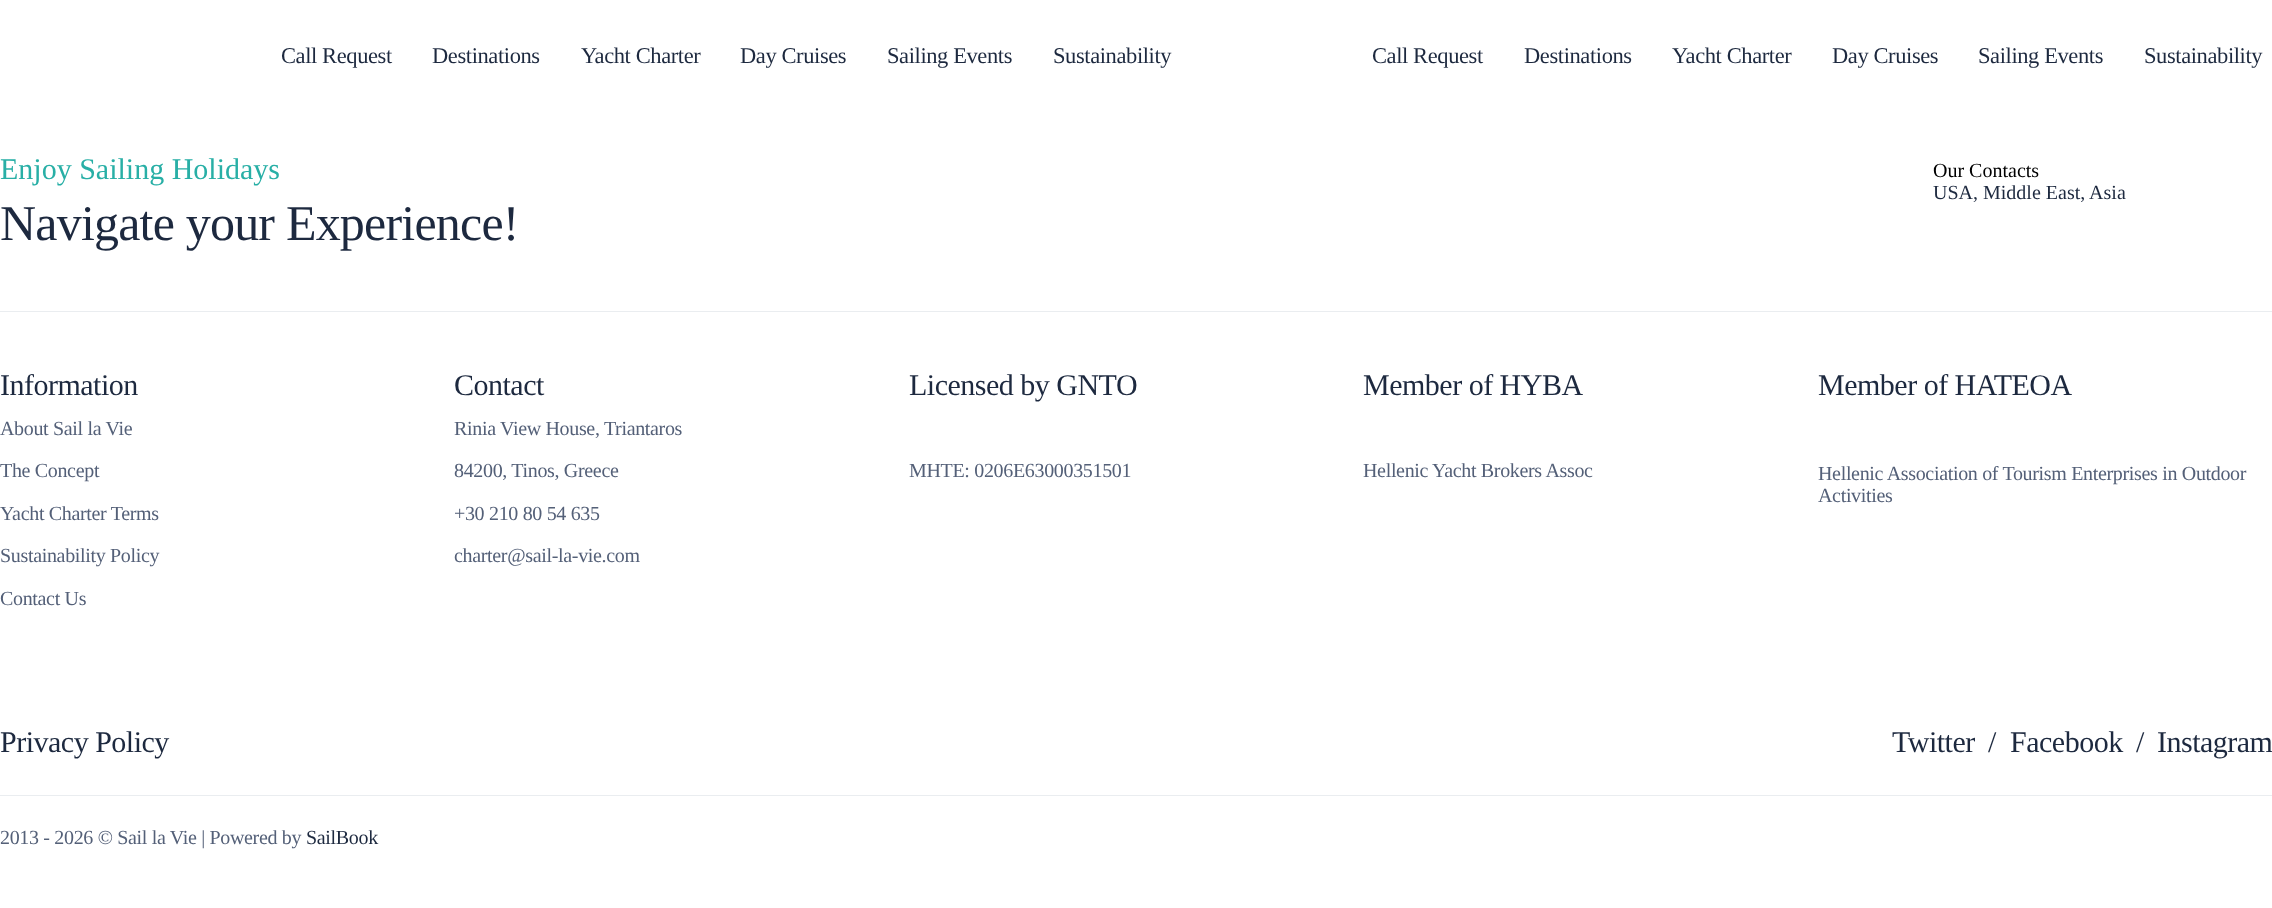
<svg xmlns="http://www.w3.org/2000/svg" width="2272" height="908">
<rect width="100%" height="100%" fill="#fff"/>
<text x="281" y="63" style="font-family:Liberation Serif;font-size:22.5px;letter-spacing:-0.4px;fill:#1d293f">Call Request</text>
<text x="432" y="63" style="font-family:Liberation Serif;font-size:22.5px;letter-spacing:-0.4px;fill:#1d293f">Destinations</text>
<text x="581" y="63" style="font-family:Liberation Serif;font-size:22.5px;letter-spacing:-0.4px;fill:#1d293f">Yacht Charter</text>
<text x="740" y="63" style="font-family:Liberation Serif;font-size:22.5px;letter-spacing:-0.4px;fill:#1d293f">Day Cruises</text>
<text x="887" y="63" style="font-family:Liberation Serif;font-size:22.5px;letter-spacing:-0.4px;fill:#1d293f">Sailing Events</text>
<text x="1053" y="63" style="font-family:Liberation Serif;font-size:22.5px;letter-spacing:-0.4px;fill:#1d293f">Sustainability</text>
<text x="1372" y="63" style="font-family:Liberation Serif;font-size:22.5px;letter-spacing:-0.4px;fill:#1d293f">Call Request</text>
<text x="1524" y="63" style="font-family:Liberation Serif;font-size:22.5px;letter-spacing:-0.4px;fill:#1d293f">Destinations</text>
<text x="1672" y="63" style="font-family:Liberation Serif;font-size:22.5px;letter-spacing:-0.4px;fill:#1d293f">Yacht Charter</text>
<text x="1832" y="63" style="font-family:Liberation Serif;font-size:22.5px;letter-spacing:-0.4px;fill:#1d293f">Day Cruises</text>
<text x="1978" y="63" style="font-family:Liberation Serif;font-size:22.5px;letter-spacing:-0.4px;fill:#1d293f">Sailing Events</text>
<text x="2144" y="63" style="font-family:Liberation Serif;font-size:22.5px;letter-spacing:-0.4px;fill:#1d293f">Sustainability</text>
<rect y="311" width="2272" height="1" fill="#eaedf0"/>
<text x="0" y="179" style="font-family:Liberation Serif;font-size:30px;fill:#28afa6">Enjoy Sailing Holidays</text>
<text x="0" y="240" style="font-family:Liberation Serif;font-size:50px;letter-spacing:-0.8px;fill:#1d293f">Navigate your Experience!</text>
<text x="1933" y="177" style="font-family:Liberation Serif;font-size:20px;fill:#000">Our Contacts</text>
<text x="1933" y="199" style="font-family:Liberation Serif;font-size:20px;fill:#1d293f">USA, Middle East, Asia</text>
<text x="0" y="395" style="font-family:Liberation Serif;font-size:30px;letter-spacing:-0.5px;fill:#1d293f">Information</text>
<text x="0" y="435" style="font-family:Liberation Serif;font-size:20px;letter-spacing:-0.33px;fill:#546078">About Sail la Vie</text>
<text x="0" y="477" style="font-family:Liberation Serif;font-size:20px;letter-spacing:-0.33px;fill:#546078">The Concept</text>
<text x="0" y="520" style="font-family:Liberation Serif;font-size:20px;letter-spacing:-0.33px;fill:#546078">Yacht Charter Terms</text>
<text x="0" y="562" style="font-family:Liberation Serif;font-size:20px;letter-spacing:-0.33px;fill:#546078">Sustainability Policy</text>
<text x="0" y="605" style="font-family:Liberation Serif;font-size:20px;letter-spacing:-0.33px;fill:#546078">Contact Us</text>
<text x="454" y="395" style="font-family:Liberation Serif;font-size:30px;letter-spacing:-0.5px;fill:#1d293f">Contact</text>
<text x="454" y="435" style="font-family:Liberation Serif;font-size:20px;letter-spacing:-0.33px;fill:#546078">Rinia View House, Triantaros</text>
<text x="454" y="477" style="font-family:Liberation Serif;font-size:20px;letter-spacing:-0.33px;fill:#546078">84200, Tinos, Greece</text>
<text x="454" y="520" style="font-family:Liberation Serif;font-size:20px;letter-spacing:-0.33px;fill:#546078">+30 210 80 54 635</text>
<text x="454" y="562" style="font-family:Liberation Serif;font-size:20px;letter-spacing:-0.33px;fill:#546078">charter@sail-la-vie.com</text>
<text x="909" y="395" style="font-family:Liberation Serif;font-size:30px;letter-spacing:-0.5px;fill:#1d293f">Licensed by GNTO</text>
<text x="909" y="477" style="font-family:Liberation Serif;font-size:20px;letter-spacing:-0.33px;fill:#546078">MHTE: 0206E63000351501</text>
<text x="1363" y="395" style="font-family:Liberation Serif;font-size:30px;letter-spacing:-0.5px;fill:#1d293f">Member of HYBA</text>
<text x="1363" y="477" style="font-family:Liberation Serif;font-size:20px;letter-spacing:-0.33px;fill:#546078">Hellenic Yacht Brokers Assoc</text>
<text x="1818" y="395" style="font-family:Liberation Serif;font-size:30px;letter-spacing:-0.5px;fill:#1d293f">Member of HATEOA</text>
<text x="1818" y="480" style="font-family:Liberation Serif;font-size:20px;letter-spacing:-0.33px;fill:#546078">Hellenic Association of Tourism Enterprises in Outdoor</text>
<text x="1818" y="502" style="font-family:Liberation Serif;font-size:20px;letter-spacing:-0.33px;fill:#546078">Activities</text>
<rect y="795" width="2272" height="1" fill="#eaedf0"/>
<text x="0" y="752" style="font-family:Liberation Serif;font-size:30px;letter-spacing:-0.5px;fill:#1d293f">Privacy Policy</text>
<text x="1892" y="752" style="font-family:Liberation Serif;font-size:30px;letter-spacing:-0.5px;fill:#1d293f">Twitter</text>
<text x="1988" y="752" style="font-family:Liberation Serif;font-size:30px;letter-spacing:-0.5px;fill:#1d293f">/</text>
<text x="2010" y="752" style="font-family:Liberation Serif;font-size:30px;letter-spacing:-0.5px;fill:#1d293f">Facebook</text>
<text x="2136" y="752" style="font-family:Liberation Serif;font-size:30px;letter-spacing:-0.5px;fill:#1d293f">/</text>
<text x="2157" y="752" style="font-family:Liberation Serif;font-size:30px;letter-spacing:-0.5px;fill:#1d293f">Instagram</text>
<text x="0" y="844" style="font-family:Liberation Serif;font-size:20px;letter-spacing:-0.33px;fill:#546078">2013 - 2026 © Sail la Vie | Powered by</text>
<text x="306" y="844" style="font-family:Liberation Serif;font-size:20px;letter-spacing:-0.33px;fill:#1d293f">SailBook</text>
</svg>
